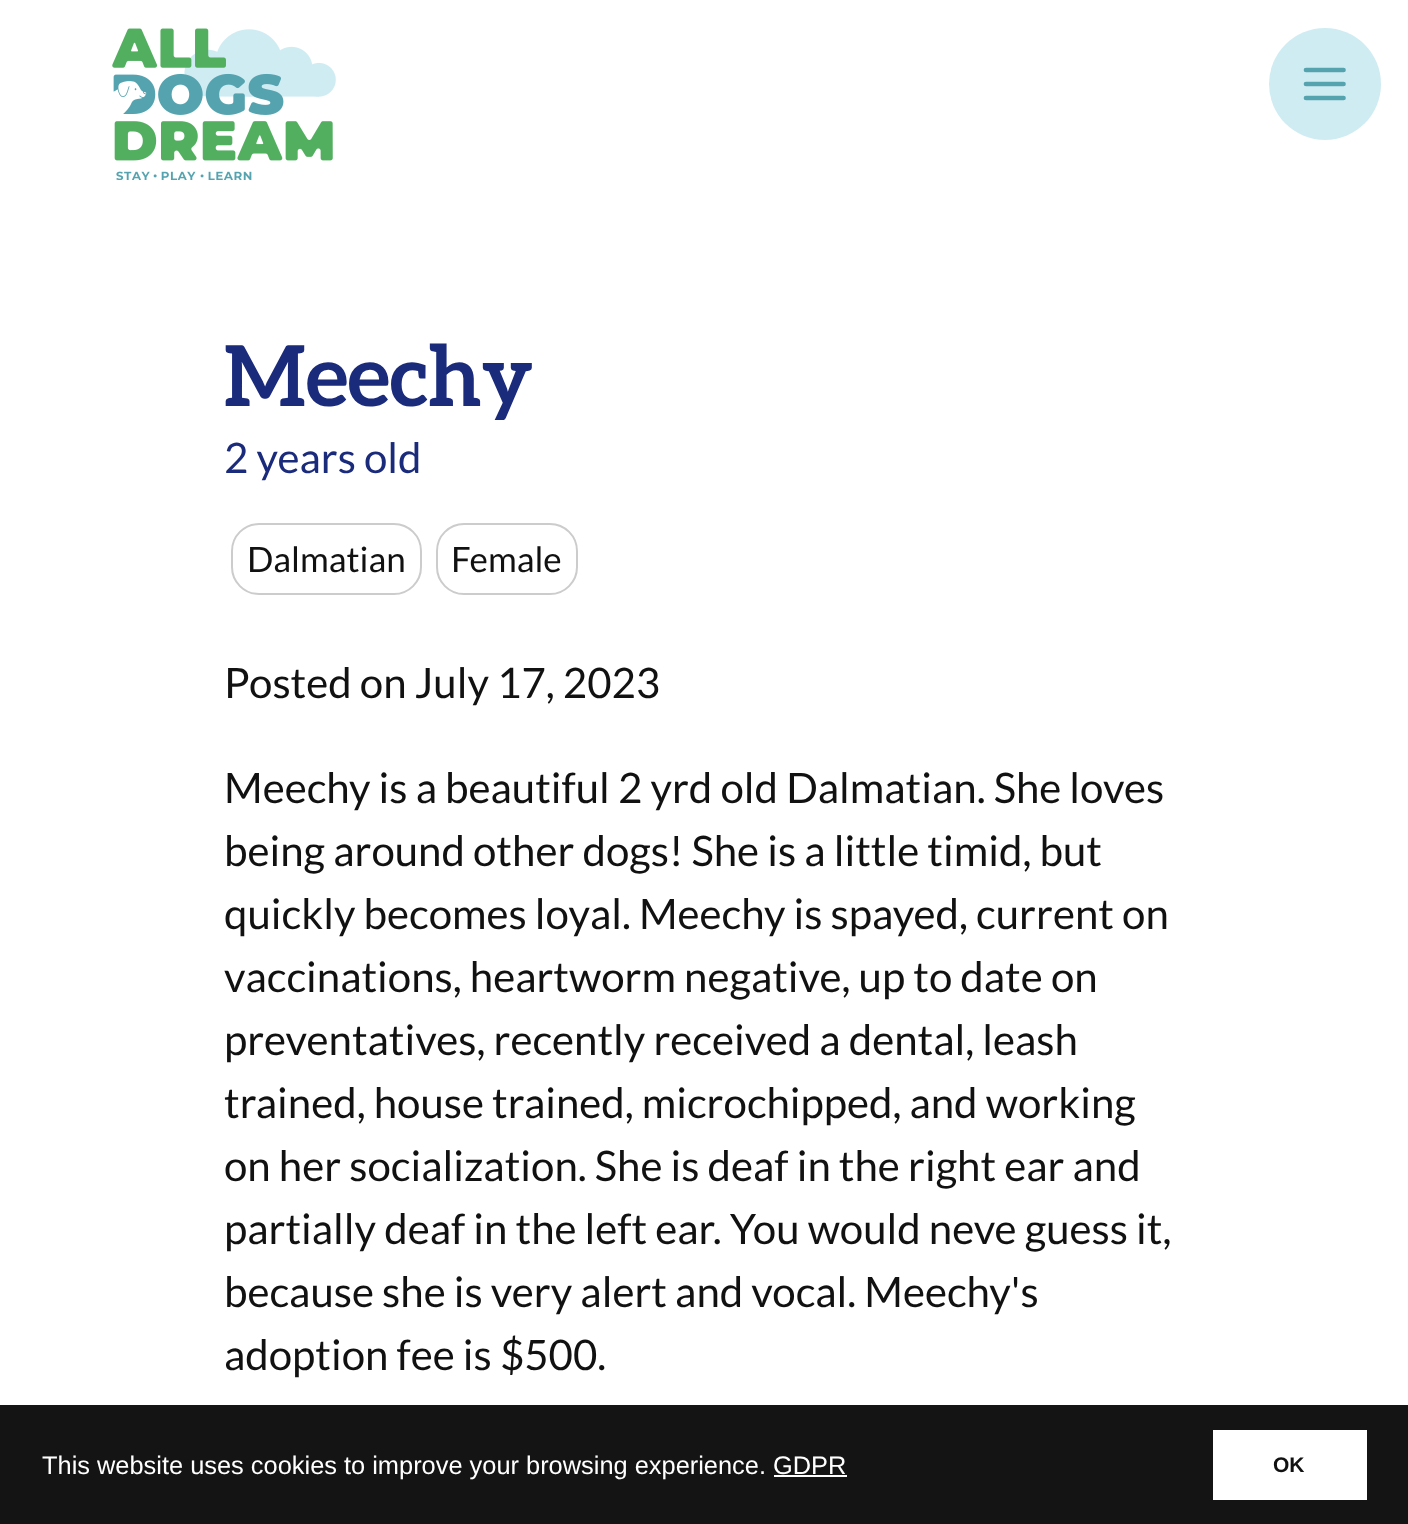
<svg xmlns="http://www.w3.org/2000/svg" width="1408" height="1524">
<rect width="100%" height="100%" fill="#fff"/>
<image x="112" y="28" width="224" height="152" href="media/1.png"/>
<circle cx="1325" cy="84" r="56" fill="#d0ecf3"/>
<path d="M1306 70h37.5m-37.5 14h37.5m-37.5 14h37.5" fill="none" stroke="#55a3af" stroke-width="4.7" stroke-linecap="round" stroke-linejoin="round"/>
<text x="224" y="406" style="font-family:Aleo;font-size:84px;font-weight:bold;fill:#1b2b7c">Meechy</text>
<text x="224" y="473" style="font-family:Lato;font-size:42px;fill:#1b2b7c">2 years old</text>
<rect x="232" y="524" width="189" height="70" rx="27" fill="none" stroke="#ccc" stroke-width="2"/>
<text x="247" y="572" style="font-family:Lato;font-size:35px;fill:#111">Dalmatian</text>
<rect x="437" y="524" width="140" height="70" rx="27" fill="none" stroke="#ccc" stroke-width="2"/>
<text x="451" y="572" style="font-family:Lato;font-size:35px;fill:#111">Female</text>
<text x="224" y="698" style="font-family:Lato;font-size:42px;fill:#111">Posted on July 17, 2023</text>
<text x="224" y="803" style="font-family:Lato;font-size:42px;fill:#111">Meechy is a beautiful 2 yrd old Dalmatian. She loves</text>
<text x="224" y="866" style="font-family:Lato;font-size:42px;fill:#111">being around other dogs! She is a little timid, but</text>
<text x="224" y="929" style="font-family:Lato;font-size:42px;fill:#111">quickly becomes loyal. Meechy is spayed, current on</text>
<text x="224" y="992" style="font-family:Lato;font-size:42px;fill:#111">vaccinations, heartworm negative, up to date on</text>
<text x="224" y="1055" style="font-family:Lato;font-size:42px;fill:#111">preventatives, recently received a dental, leash</text>
<text x="224" y="1118" style="font-family:Lato;font-size:42px;fill:#111">trained, house trained, microchipped, and working</text>
<text x="224" y="1181" style="font-family:Lato;font-size:42px;fill:#111">on her socialization. She is deaf in the right ear and</text>
<text x="224" y="1244" style="font-family:Lato;font-size:42px;fill:#111">partially deaf in the left ear. You would neve guess it,</text>
<text x="224" y="1307" style="font-family:Lato;font-size:42px;fill:#111">because she is very alert and vocal. Meechy's</text>
<text x="224" y="1370" style="font-family:Lato;font-size:42px;fill:#111">adoption fee is $500.</text>
<rect y="1405" width="1408" height="119" fill="#141414"/>
<text x="42" y="1474" style="font-family:Liberation Sans;font-size:25.4px;fill:#fff">This website uses cookies to improve your browsing experience.</text>
<text x="773" y="1474" style="font-family:Liberation Sans;font-size:25.4px;fill:#fff">GDPR</text>
<rect x="774" y="1475" width="73" height="2" fill="#fff"/>
<rect x="1213" y="1430" width="154" height="70" fill="#fff"/>
<text x="1273" y="1472" style="font-family:Liberation Sans;font-size:21px;font-weight:bold;fill:#111">OK</text>
</svg>
